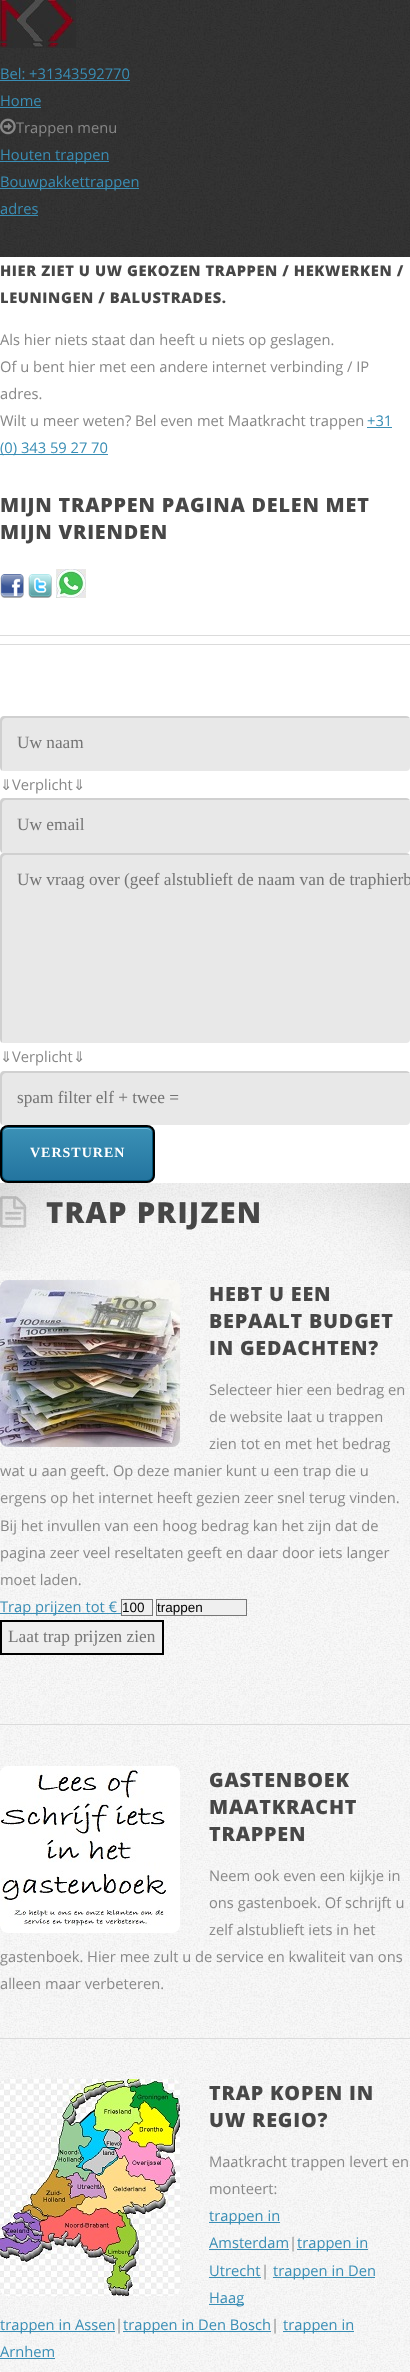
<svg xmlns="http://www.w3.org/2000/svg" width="410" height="2372">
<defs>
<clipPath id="clip1"><rect y="1125" width="155" height="58" rx="8"/></clipPath>
<linearGradient id="g1" gradientUnits="userSpaceOnUse" x1="78" y1="1127" x2="78" y2="1181"><stop offset="0" stop-color="#3b91b6"/><stop offset="1" stop-color="#23749f"/></linearGradient>
</defs>
<rect width="100%" height="100%" fill="#fff"/>
<image x="0" y="0" width="410" height="257" href="media/1.png"/>
<image x="0" y="0" width="76" height="43" href="media/2.png"/>
<image x="0" y="43" width="76" height="5" href="media/3.png"/>
<text x="0" y="79" style="font-family:Open Sans;font-size:14.7px;fill:#3a8eb5">Bel: +31343592770</text>
<rect y="80" width="130" height="1" fill="#3a8eb5"/>
<text x="0" y="106" style="font-family:Open Sans;font-size:14.7px;fill:#3a8eb5">Home</text>
<rect y="107" width="41" height="1" fill="#3a8eb5"/>
<image x="0" y="118" width="16" height="17" href="media/4.png"/>
<text x="16" y="133" style="font-family:Open Sans;font-size:14.7px;fill:#888">Trappen menu</text>
<rect y="161" width="109" height="1" fill="#3a8eb5"/>
<text x="0" y="160" style="font-family:Open Sans;font-size:14.7px;fill:#3a8eb5">Houten trappen</text>
<rect y="188" width="139" height="1" fill="#3a8eb5"/>
<text x="0" y="187" style="font-family:Open Sans;font-size:14.7px;fill:#3a8eb5">Bouwpakkettrappen</text>
<text x="0" y="214" style="font-family:Open Sans;font-size:14.7px;fill:#3a8eb5">adres</text>
<rect y="215" width="38" height="1" fill="#3a8eb5"/>
<rect y="644" width="410" height="1" fill="#dbdbdb"/>
<text x="0" y="276" style="font-family:Open Sans;font-size:14.7px;font-weight:800;letter-spacing:0.6px;fill:#474747">HIER ZIET U UW GEKOZEN TRAPPEN / HEKWERKEN /</text>
<text x="0" y="303" style="font-family:Open Sans;font-size:14.7px;font-weight:800;letter-spacing:0.6px;fill:#474747">LEUNINGEN / BALUSTRADES.</text>
<text x="0" y="345" style="font-family:Open Sans;font-size:14.7px;fill:#888">Als hier niets staat dan heeft u niets op geslagen.</text>
<text x="0" y="372" style="font-family:Open Sans;font-size:14.7px;fill:#888">Of u bent hier met een andere internet verbinding / IP</text>
<text x="0" y="399" style="font-family:Open Sans;font-size:14.7px;fill:#888">adres.</text>
<text x="0" y="426" style="font-family:Open Sans;font-size:14.7px;fill:#888">Wilt u meer weten? Bel even met Maatkracht trappen</text>
<text x="367" y="426" style="font-family:Open Sans;font-size:14.7px;fill:#3a8eb5">+31</text>
<rect x="367" y="427" width="25" height="1" fill="#3a8eb5"/>
<rect y="454" width="108" height="1" fill="#3a8eb5"/>
<text x="0" y="453" style="font-family:Open Sans;font-size:14.7px;fill:#3a8eb5">(0) 343 59 27 70</text>
<text x="0" y="512" style="font-family:Open Sans;font-size:19.75px;font-weight:800;letter-spacing:0.8px;fill:#474747">MIJN TRAPPEN PAGINA DELEN MET</text>
<text x="0" y="539" style="font-family:Open Sans;font-size:19.75px;font-weight:800;letter-spacing:0.8px;fill:#474747">MIJN VRIENDEN</text>
<image x="0" y="574" width="24" height="24" href="media/5.png"/>
<image x="28" y="574" width="24" height="24" href="media/6.png"/>
<image x="56" y="569" width="30" height="29" href="media/7.png"/>
<rect y="635" width="410" height="1" fill="#dbdbdb"/>
<rect y="716" width="410" height="55" rx="4" fill="#e8e8e8"/>
<path d="M6 718h402h2c-1-1-2-2-4-2h-402c-2 0-4 2-4 4v47c0 2 1 3 2 4v-2v-47c0-2 2-4 4-4z" fill="#0000001a"/>
<text x="17" y="748" style="font-family:Liberation Serif;font-size:17.3px;fill:#757575">Uw naam</text>
<text x="0" y="790" style="font-family:DejaVu Sans;font-size:14.7px;fill:#888">⇓</text>
<text x="12" y="790" style="font-family:Open Sans;font-size:14.7px;fill:#888">Verplicht</text>
<text x="73" y="790" style="font-family:DejaVu Sans;font-size:14.7px;fill:#888">⇓</text>
<rect y="798" width="410" height="55" rx="4" fill="#e8e8e8"/>
<path d="M6 800h402h2c-1-1-2-2-4-2h-402c-2 0-4 2-4 4v47c0 2 1 3 2 4v-2v-47c0-2 2-4 4-4z" fill="#0000001a"/>
<text x="17" y="830" style="font-family:Liberation Serif;font-size:17.3px;fill:#757575">Uw email</text>
<rect y="853" width="410" height="190" rx="4" fill="#e8e8e8"/>
<path d="M6 855h402h2c-1-1-2-2-4-2h-402c-2 0-4 2-4 4v182c0 2 1 3 2 4v-2v-182c0-2 2-4 4-4z" fill="#0000001a"/>
<text x="17" y="885" style="font-family:Liberation Serif;font-size:17.3px;fill:#757575">Uw vraag over (geef alstublieft de naam van de traphierb</text>
<text x="0" y="1062" style="font-family:DejaVu Sans;font-size:14.7px;fill:#888">⇓</text>
<text x="12" y="1062" style="font-family:Open Sans;font-size:14.7px;fill:#888">Verplicht</text>
<text x="73" y="1062" style="font-family:DejaVu Sans;font-size:14.7px;fill:#888">⇓</text>
<rect y="1071" width="410" height="54" rx="4" fill="#e8e8e8"/>
<path d="M6 1073h402h2c-1-1-2-2-4-2h-402c-2 0-4 2-4 4v46c0 2 1 3 2 4v-2v-46c0-2 2-4 4-4z" fill="#0000001a"/>
<text x="17" y="1103" style="font-family:Liberation Serif;font-size:17.3px;fill:#757575">spam filter elf + twee =</text>
<g clip-path="url(#clip1)">
<rect y="1127" width="155" height="54" fill="url(#g1)"/>
</g>
<path d="M8 1129h139c3 0 6 3 6 6v-2c0-3-3-6-6-6h-139c-3 0-6 3-6 6v2c0-3 3-6 6-6z" fill="#76c0e0"/>
<rect x="2.5" y="1127.5" width="150" height="53" rx="5.5" fill="none" stroke="#005173"/>
<rect x="1" y="1126" width="153" height="56" rx="7" fill="none" stroke="#000" stroke-width="2"/>
<text x="30" y="1157" style="font-family:Liberation Serif;font-size:14px;font-weight:bold;letter-spacing:1px;fill:#fff">VERSTUREN</text>
<image x="0" y="1183" width="410" height="1189" href="media/8.png"/>
<image x="0" y="1183" width="410" height="88" href="media/9.png"/>
<image x="0" y="1196" width="27" height="32" href="media/10.png"/>
<text x="46" y="1223" style="font-family:Open Sans;font-size:29.25px;font-weight:800;letter-spacing:1.25px;fill:#474747">TRAP PRIJZEN</text>
<rect y="1724" width="410" height="1" fill="#dbdbdb"/>
<image x="0" y="1280" width="180" height="167" href="media/11.png"/>
<text x="209" y="1301" style="font-family:Open Sans;font-size:19.75px;font-weight:800;letter-spacing:0.8px;fill:#474747">HEBT U EEN</text>
<text x="209" y="1328" style="font-family:Open Sans;font-size:19.75px;font-weight:800;letter-spacing:0.8px;fill:#474747">BEPAALT BUDGET</text>
<text x="209" y="1355" style="font-family:Open Sans;font-size:19.75px;font-weight:800;letter-spacing:0.8px;fill:#474747">IN GEDACHTEN?</text>
<text x="209" y="1395" style="font-family:Open Sans;font-size:14.7px;fill:#888">Selecteer hier een bedrag en</text>
<text x="209" y="1422" style="font-family:Open Sans;font-size:14.7px;fill:#888">de website laat u trappen</text>
<text x="209" y="1449" style="font-family:Open Sans;font-size:14.7px;fill:#888">zien tot en met het bedrag</text>
<text x="0" y="1476" style="font-family:Open Sans;font-size:14.7px;fill:#888">wat u aan geeft. Op deze manier kunt u een trap die u</text>
<text x="0" y="1503" style="font-family:Open Sans;font-size:14.7px;fill:#888">ergens op het internet heeft gezien zeer snel terug vinden.</text>
<text x="0" y="1531" style="font-family:Open Sans;font-size:14.7px;fill:#888">Bij het invullen van een hoog bedrag kan het zijn dat de</text>
<text x="0" y="1558" style="font-family:Open Sans;font-size:14.7px;fill:#888">pagina zeer veel reseltaten geeft en daar door iets langer</text>
<text x="0" y="1585" style="font-family:Open Sans;font-size:14.7px;fill:#888">moet laden.</text>
<rect y="1613" width="121" height="1" fill="#3a8eb5"/>
<text x="0" y="1612" style="font-family:Open Sans;font-size:14.7px;fill:#3a8eb5">Trap prijzen tot €</text>
<rect x="121.5" y="1599.5" width="31" height="16" fill="#efefef" stroke="#767676"/>
<text x="122" y="1612" style="font-family:Liberation Sans;font-size:13.5px;fill:#000">100</text>
<rect x="156.5" y="1599.5" width="90" height="16" fill="#efefef" stroke="#767676"/>
<text x="157" y="1612" style="font-family:Liberation Sans;font-size:13.5px;fill:#000">trappen</text>
<rect x="1" y="1621" width="162" height="33" fill="#efefef" stroke="#000" stroke-width="2"/>
<text x="8" y="1642" style="font-family:Liberation Serif;font-size:17.3px;fill:#757575">Laat trap prijzen zien</text>
<rect y="2038" width="410" height="1" fill="#dbdbdb"/>
<image x="0" y="1766" width="180" height="167" href="media/12.png"/>
<text x="209" y="1787" style="font-family:Open Sans;font-size:19.75px;font-weight:800;letter-spacing:0.8px;fill:#474747">GASTENBOEK</text>
<text x="209" y="1814" style="font-family:Open Sans;font-size:19.75px;font-weight:800;letter-spacing:0.8px;fill:#474747">MAATKRACHT</text>
<text x="209" y="1841" style="font-family:Open Sans;font-size:19.75px;font-weight:800;letter-spacing:0.8px;fill:#474747">TRAPPEN</text>
<text x="209" y="1881" style="font-family:Open Sans;font-size:14.7px;fill:#888">Neem ook even een kijkje in</text>
<text x="209" y="1908" style="font-family:Open Sans;font-size:14.7px;fill:#888">ons gastenboek. Of schrijft u</text>
<text x="209" y="1935" style="font-family:Open Sans;font-size:14.7px;fill:#888">zelf alstublieft iets in het</text>
<text x="0" y="1962" style="font-family:Open Sans;font-size:14.7px;fill:#888">gastenboek. Hier mee zult u de service en kwaliteit van ons</text>
<text x="0" y="1989" style="font-family:Open Sans;font-size:14.7px;fill:#888">alleen maar verbeteren.</text>
<image x="0" y="2079" width="180" height="217" href="media/13.png"/>
<text x="209" y="2100" style="font-family:Open Sans;font-size:19.75px;font-weight:800;letter-spacing:0.8px;fill:#474747">TRAP KOPEN IN</text>
<text x="209" y="2127" style="font-family:Open Sans;font-size:19.75px;font-weight:800;letter-spacing:0.8px;fill:#474747">UW REGIO?</text>
<text x="209" y="2167" style="font-family:Open Sans;font-size:14.7px;fill:#888">Maatkracht trappen levert en</text>
<text x="209" y="2194" style="font-family:Open Sans;font-size:14.7px;fill:#888">monteert:</text>
<rect x="209" y="2222" width="71" height="1" fill="#3a8eb5"/>
<text x="209" y="2221" style="font-family:Open Sans;font-size:14.7px;fill:#3a8eb5">trappen in</text>
<text x="209" y="2248" style="font-family:Open Sans;font-size:14.7px;fill:#3a8eb5">Amsterdam</text>
<rect x="209" y="2249" width="80" height="1" fill="#3a8eb5"/>
<text x="289" y="2248" style="font-family:Open Sans;font-size:14.7px;fill:#888">|</text>
<rect x="297" y="2249" width="71" height="1" fill="#3a8eb5"/>
<text x="297" y="2248" style="font-family:Open Sans;font-size:14.7px;fill:#3a8eb5">trappen in</text>
<text x="209" y="2276" style="font-family:Open Sans;font-size:14.7px;fill:#3a8eb5">Utrecht</text>
<rect x="209" y="2277" width="52" height="1" fill="#3a8eb5"/>
<text x="261" y="2276" style="font-family:Open Sans;font-size:14.7px;fill:#888">|</text>
<rect x="273" y="2277" width="102" height="1" fill="#3a8eb5"/>
<text x="273" y="2276" style="font-family:Open Sans;font-size:14.7px;fill:#3a8eb5">trappen in Den</text>
<rect x="209" y="2304" width="35" height="1" fill="#3a8eb5"/>
<text x="209" y="2303" style="font-family:Open Sans;font-size:14.7px;fill:#3a8eb5">Haag</text>
<rect y="2331" width="115" height="1" fill="#3a8eb5"/>
<text x="0" y="2330" style="font-family:Open Sans;font-size:14.7px;fill:#3a8eb5">trappen in Assen</text>
<text x="115" y="2330" style="font-family:Open Sans;font-size:14.7px;fill:#888">|</text>
<rect x="123" y="2331" width="148" height="1" fill="#3a8eb5"/>
<text x="123" y="2330" style="font-family:Open Sans;font-size:14.7px;fill:#3a8eb5">trappen in Den Bosch</text>
<text x="271" y="2330" style="font-family:Open Sans;font-size:14.7px;fill:#888">|</text>
<rect x="283" y="2331" width="71" height="1" fill="#3a8eb5"/>
<text x="283" y="2330" style="font-family:Open Sans;font-size:14.7px;fill:#3a8eb5">trappen in</text>
<text x="0" y="2357" style="font-family:Open Sans;font-size:14.7px;fill:#3a8eb5">Arnhem</text>
<rect y="2358" width="55" height="1" fill="#3a8eb5"/>
</svg>
